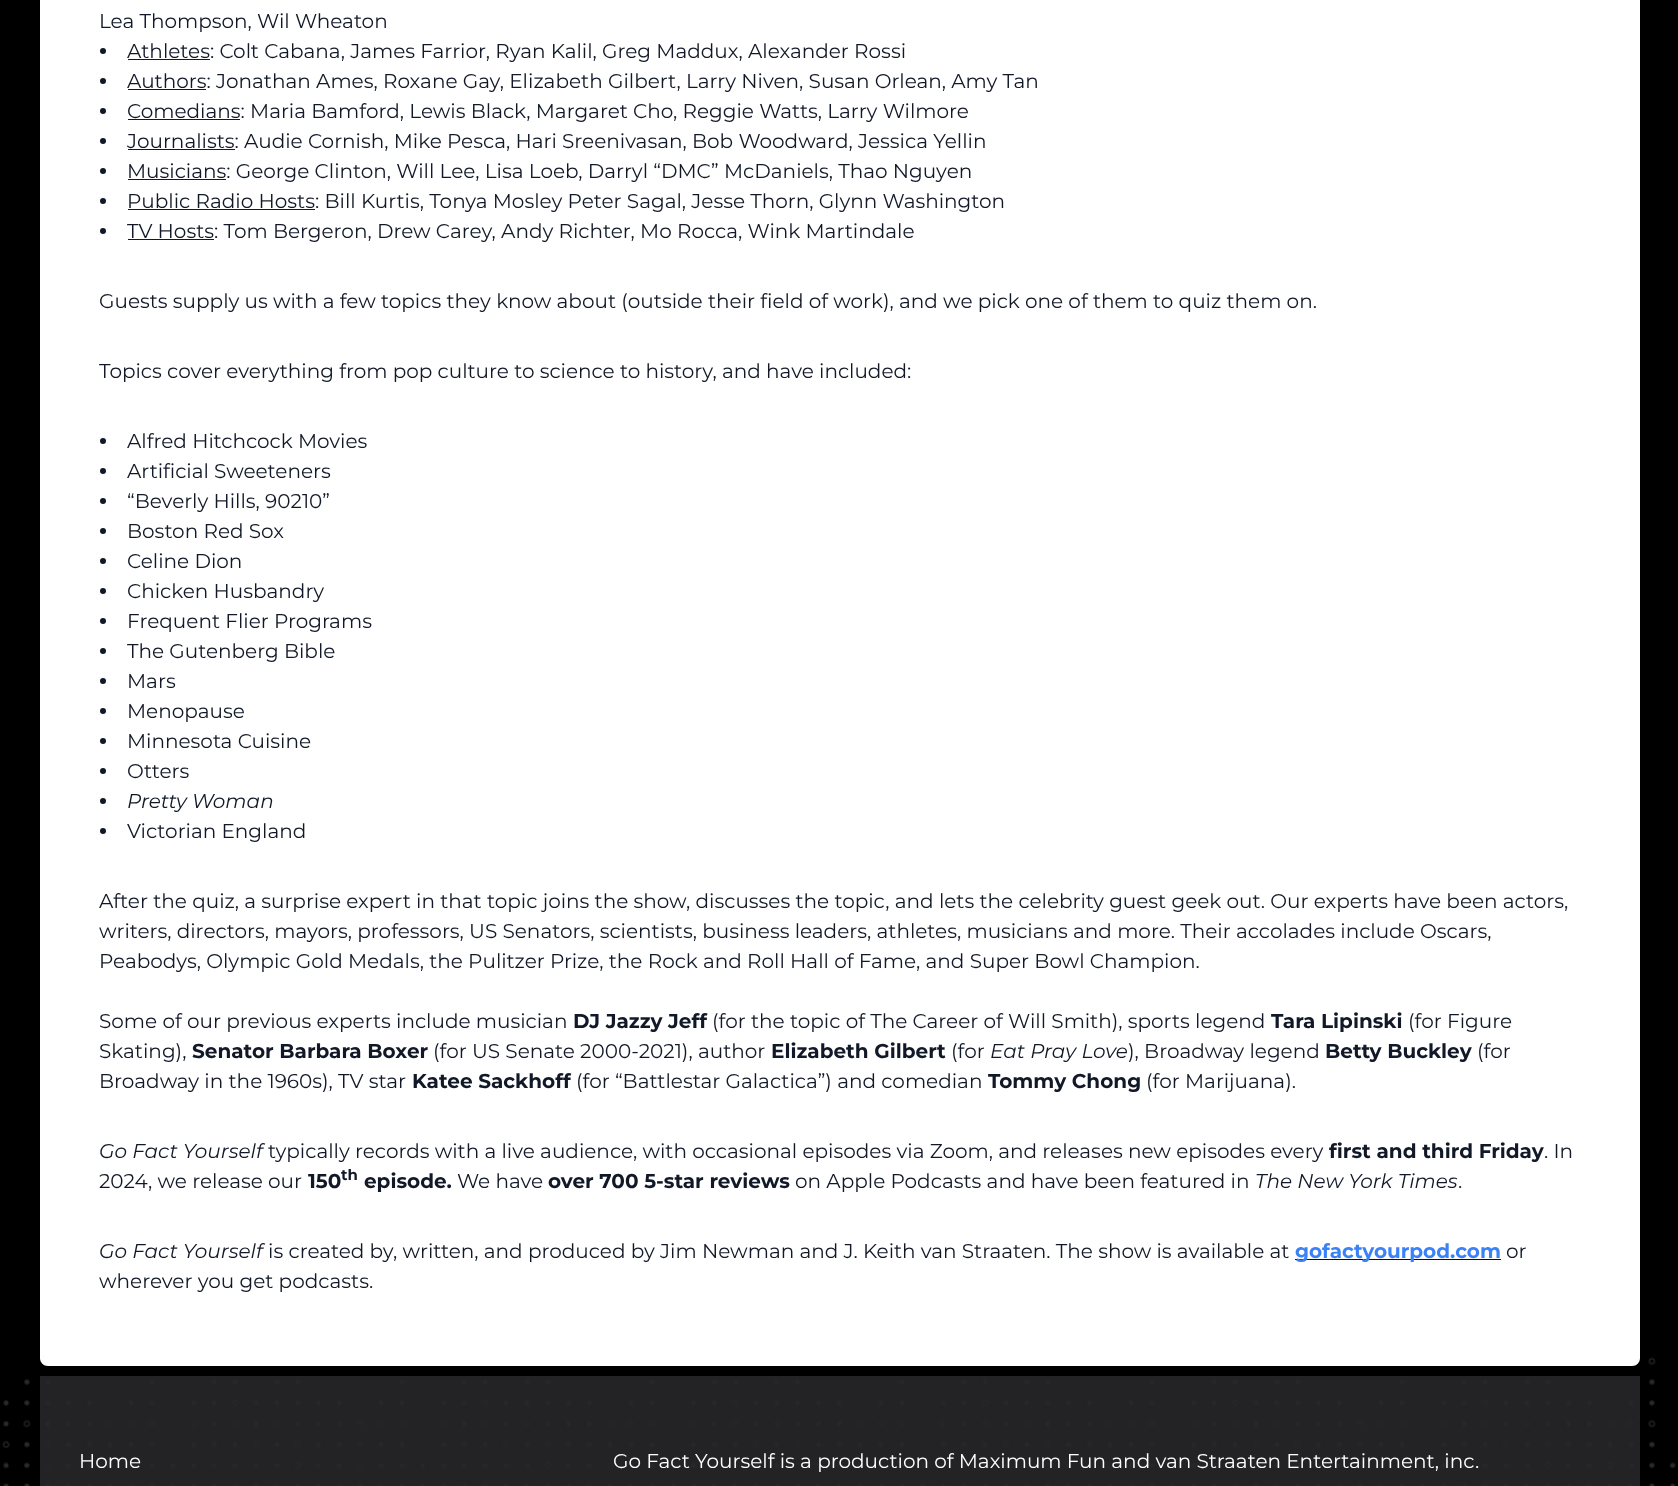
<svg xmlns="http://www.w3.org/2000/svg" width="1678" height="1486">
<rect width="100%" height="100%" fill="#000"/>
<image x="2" y="1357" width="1674" height="129" href="media/1.png"/>
<path d="M40-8h1600v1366c0 4.5-3.5 8-8 8h-1584c-4.5 0-8-3.5-8-8z" fill="#fff"/>
<text x="99" y="28" style="font-family:Montserrat;font-size:20px;fill:#111827">Lea Thompson, Wil Wheaton</text>
<circle cx="103" cy="51" r="3" fill="#111827"/>
<rect x="128" y="59" width="82" height="1" fill="#111827"/>
<text x="127" y="58" style="font-family:Montserrat;font-size:20px;fill:#111827">Athletes: Colt Cabana, James Farrior, Ryan Kalil, Greg Maddux, Alexander Rossi</text>
<circle cx="103" cy="81" r="3" fill="#111827"/>
<rect x="128" y="89" width="78" height="1" fill="#111827"/>
<text x="127" y="88" style="font-family:Montserrat;font-size:20px;fill:#111827">Authors: Jonathan Ames, Roxane Gay, Elizabeth Gilbert, Larry Niven, Susan Orlean, Amy Tan</text>
<circle cx="103" cy="111" r="3" fill="#111827"/>
<rect x="128" y="119" width="112" height="1" fill="#111827"/>
<text x="127" y="118" style="font-family:Montserrat;font-size:20px;fill:#111827">Comedians: Maria Bamford, Lewis Black, Margaret Cho, Reggie Watts, Larry Wilmore</text>
<circle cx="103" cy="141" r="3" fill="#111827"/>
<rect x="128" y="149" width="107" height="1" fill="#111827"/>
<text x="127" y="148" style="font-family:Montserrat;font-size:20px;fill:#111827">Journalists: Audie Cornish, Mike Pesca, Hari Sreenivasan, Bob Woodward, Jessica Yellin</text>
<circle cx="103" cy="171" r="3" fill="#111827"/>
<rect x="128" y="179" width="98" height="1" fill="#111827"/>
<text x="127" y="178" style="font-family:Montserrat;font-size:20px;fill:#111827">Musicians: George Clinton, Will Lee, Lisa Loeb, Darryl “DMC” McDaniels, Thao Nguyen</text>
<circle cx="103" cy="201" r="3" fill="#111827"/>
<rect x="128" y="209" width="187" height="1" fill="#111827"/>
<text x="127" y="208" style="font-family:Montserrat;font-size:20px;fill:#111827">Public Radio Hosts: Bill Kurtis, Tonya Mosley Peter Sagal, Jesse Thorn, Glynn Washington</text>
<circle cx="103" cy="231" r="3" fill="#111827"/>
<rect x="128" y="239" width="86" height="1" fill="#111827"/>
<text x="127" y="238" style="font-family:Montserrat;font-size:20px;fill:#111827">TV Hosts: Tom Bergeron, Drew Carey, Andy Richter, Mo Rocca, Wink Martindale</text>
<text x="99" y="308" style="font-family:Montserrat;font-size:20px;fill:#111827">Guests supply us with a few topics they know about (outside their field of work), and we pick one of them to quiz them on.</text>
<text x="99" y="378" style="font-family:Montserrat;font-size:20px;fill:#111827">Topics cover everything from pop culture to science to history, and have included:</text>
<circle cx="103" cy="441" r="3" fill="#111827"/>
<text x="127" y="448" style="font-family:Montserrat;font-size:20px;fill:#111827">Alfred Hitchcock Movies</text>
<circle cx="103" cy="471" r="3" fill="#111827"/>
<text x="127" y="478" style="font-family:Montserrat;font-size:20px;fill:#111827">Artificial Sweeteners</text>
<circle cx="103" cy="501" r="3" fill="#111827"/>
<text x="127" y="508" style="font-family:Montserrat;font-size:20px;fill:#111827">“Beverly Hills, 90210”</text>
<circle cx="103" cy="531" r="3" fill="#111827"/>
<text x="127" y="538" style="font-family:Montserrat;font-size:20px;fill:#111827">Boston Red Sox</text>
<circle cx="103" cy="561" r="3" fill="#111827"/>
<text x="127" y="568" style="font-family:Montserrat;font-size:20px;fill:#111827">Celine Dion</text>
<circle cx="103" cy="591" r="3" fill="#111827"/>
<text x="127" y="598" style="font-family:Montserrat;font-size:20px;fill:#111827">Chicken Husbandry</text>
<circle cx="103" cy="621" r="3" fill="#111827"/>
<text x="127" y="628" style="font-family:Montserrat;font-size:20px;fill:#111827">Frequent Flier Programs</text>
<circle cx="103" cy="651" r="3" fill="#111827"/>
<text x="127" y="658" style="font-family:Montserrat;font-size:20px;fill:#111827">The Gutenberg Bible</text>
<circle cx="103" cy="681" r="3" fill="#111827"/>
<text x="127" y="688" style="font-family:Montserrat;font-size:20px;fill:#111827">Mars</text>
<circle cx="103" cy="711" r="3" fill="#111827"/>
<text x="127" y="718" style="font-family:Montserrat;font-size:20px;fill:#111827">Menopause</text>
<circle cx="103" cy="741" r="3" fill="#111827"/>
<text x="127" y="748" style="font-family:Montserrat;font-size:20px;fill:#111827">Minnesota Cuisine</text>
<circle cx="103" cy="771" r="3" fill="#111827"/>
<text x="127" y="778" style="font-family:Montserrat;font-size:20px;fill:#111827">Otters</text>
<circle cx="103" cy="801" r="3" fill="#111827"/>
<text x="127" y="808" style="font-family:Montserrat;font-size:20px;font-weight:100;font-style:italic;fill:#111827">Pretty Woman</text>
<circle cx="103" cy="831" r="3" fill="#111827"/>
<text x="127" y="838" style="font-family:Montserrat;font-size:20px;fill:#111827">Victorian England</text>
<text x="99" y="908" style="font-family:Montserrat;font-size:20px;fill:#111827">After the quiz, a surprise expert in that topic joins the show, discusses the topic, and lets the celebrity guest geek out. Our experts have been actors,</text>
<text x="99" y="938" style="font-family:Montserrat;font-size:20px;fill:#111827">writers, directors, mayors, professors, US Senators, scientists, business leaders, athletes, musicians and more. Their accolades include Oscars,</text>
<text x="99" y="968" style="font-family:Montserrat;font-size:20px;fill:#111827">Peabodys, Olympic Gold Medals, the Pulitzer Prize, the Rock and Roll Hall of Fame, and Super Bowl Champion.</text>
<text x="99" y="1028" style="font-family:Montserrat;font-size:20px;fill:#111827">Some of our previous experts include musician</text>
<text x="573" y="1028" style="font-family:Montserrat;font-size:20px;font-weight:bold;fill:#111827">DJ Jazzy Jeff</text>
<text x="712" y="1028" style="font-family:Montserrat;font-size:20px;fill:#111827">(for the topic of The Career of Will Smith), sports legend</text>
<text x="1271" y="1028" style="font-family:Montserrat;font-size:20px;font-weight:bold;fill:#111827">Tara Lipinski</text>
<text x="1408" y="1028" style="font-family:Montserrat;font-size:20px;fill:#111827">(for Figure</text>
<text x="99" y="1058" style="font-family:Montserrat;font-size:20px;fill:#111827">Skating),</text>
<text x="192" y="1058" style="font-family:Montserrat;font-size:20px;font-weight:bold;fill:#111827">Senator Barbara Boxer</text>
<text x="433" y="1058" style="font-family:Montserrat;font-size:20px;fill:#111827">(for US Senate 2000-2021), author</text>
<text x="771" y="1058" style="font-family:Montserrat;font-size:20px;font-weight:bold;fill:#111827">Elizabeth Gilbert</text>
<text x="951" y="1058" style="font-family:Montserrat;font-size:20px;fill:#111827">(for</text>
<text x="990" y="1058" style="font-family:Montserrat;font-size:20px;font-weight:100;font-style:italic;fill:#111827">Eat Pray Love</text>
<text x="1128" y="1058" style="font-family:Montserrat;font-size:20px;fill:#111827">), Broadway legend</text>
<text x="1325" y="1058" style="font-family:Montserrat;font-size:20px;font-weight:bold;fill:#111827">Betty Buckley</text>
<text x="1477" y="1058" style="font-family:Montserrat;font-size:20px;fill:#111827">(for</text>
<text x="99" y="1088" style="font-family:Montserrat;font-size:20px;fill:#111827">Broadway in the 1960s), TV star</text>
<text x="412" y="1088" style="font-family:Montserrat;font-size:20px;font-weight:bold;fill:#111827">Katee Sackhoff</text>
<text x="576" y="1088" style="font-family:Montserrat;font-size:20px;fill:#111827">(for “Battlestar Galactica”) and comedian</text>
<text x="988" y="1088" style="font-family:Montserrat;font-size:20px;font-weight:bold;fill:#111827">Tommy Chong</text>
<text x="1146" y="1088" style="font-family:Montserrat;font-size:20px;fill:#111827">(for Marijuana).</text>
<text x="99" y="1158" style="font-family:Montserrat;font-size:20px;font-weight:100;font-style:italic;fill:#111827">Go Fact Yourself</text>
<text x="268" y="1158" style="font-family:Montserrat;font-size:20px;fill:#111827">typically records with a live audience, with occasional episodes via Zoom, and releases new episodes every</text>
<text x="1329" y="1158" style="font-family:Montserrat;font-size:20px;font-weight:bold;fill:#111827">first and third Friday</text>
<text x="1544" y="1158" style="font-family:Montserrat;font-size:20px;fill:#111827">. In</text>
<text x="99" y="1188" style="font-family:Montserrat;font-size:20px;fill:#111827">2024, we release our</text>
<text x="308" y="1188" style="font-family:Montserrat;font-size:20px;font-weight:bold;fill:#111827">150</text>
<text x="341" y="1180" style="font-family:Montserrat;font-size:15px;font-weight:bold;fill:#111827">th</text>
<text x="364" y="1188" style="font-family:Montserrat;font-size:20px;font-weight:bold;fill:#111827">episode.</text>
<text x="457" y="1188" style="font-family:Montserrat;font-size:20px;fill:#111827">We have</text>
<text x="548" y="1188" style="font-family:Montserrat;font-size:20px;font-weight:bold;fill:#111827">over 700 5-star reviews</text>
<text x="795" y="1188" style="font-family:Montserrat;font-size:20px;fill:#111827">on Apple Podcasts and have been featured in</text>
<text x="1255" y="1188" style="font-family:Montserrat;font-size:20px;font-weight:100;font-style:italic;fill:#111827">The New York Times</text>
<text x="1458" y="1188" style="font-family:Montserrat;font-size:20px;fill:#111827">.</text>
<text x="99" y="1258" style="font-family:Montserrat;font-size:20px;font-weight:100;font-style:italic;fill:#111827">Go Fact Yourself</text>
<text x="268" y="1258" style="font-family:Montserrat;font-size:20px;fill:#111827">is created by, written, and produced by Jim Newman and J. Keith van Straaten. The show is available at</text>
<rect x="1295" y="1259" width="206" height="1" fill="#000080"/>
<text x="1295" y="1258" style="font-family:Montserrat;font-size:20px;font-weight:bold;fill:#3b82f6">gofactyourpod.com</text>
<text x="1506" y="1258" style="font-family:Montserrat;font-size:20px;fill:#111827">or</text>
<text x="99" y="1288" style="font-family:Montserrat;font-size:20px;fill:#111827">wherever you get podcasts.</text>
<rect x="40" y="1376" width="1600" height="110" fill="#27272ae6"/>
<text x="79" y="1468" style="font-family:Montserrat;font-size:20px;fill:#fff">Home</text>
<text x="613" y="1468" style="font-family:Montserrat;font-size:20px;fill:#fff">Go Fact Yourself is a production of Maximum Fun and van Straaten Entertainment, inc.</text>
</svg>
